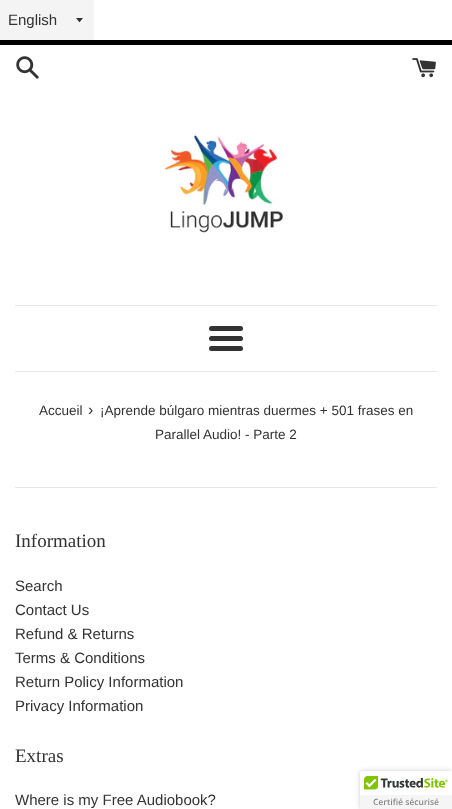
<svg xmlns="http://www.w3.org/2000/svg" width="452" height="809">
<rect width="100%" height="100%" fill="#fff"/>
<rect width="94" height="40" fill="#f4f4f4"/>
<path d="M76 18c4.5 5.5 2.5 5.5 7 0z" fill="#333"/>
<text x="8" y="25" style="font-family:Liberation Sans;font-size:15px;fill:#333">English</text>
<rect y="40" width="452" height="5" fill="#000"/>
<image x="16" y="56" width="23" height="23" href="media/1.png"/>
<image x="412" y="58" width="24" height="20" href="media/2.png"/>
<image x="164" y="132" width="120" height="101" href="media/3.png"/>
<rect x="15" y="305" width="422" height="1" fill="#e8e8e8"/>
<rect x="209" y="326" width="34" height="5" rx="2.5" fill="#333"/>
<rect x="209" y="336" width="34" height="5" rx="2.5" fill="#333"/>
<rect x="209" y="346" width="34" height="5" rx="2.5" fill="#333"/>
<rect x="15" y="371" width="422" height="1" fill="#e8e8e8"/>
<text x="39" y="415" style="font-family:Liberation Sans;font-size:13.5px;fill:#333">Accueil</text>
<text x="88" y="415" style="font-family:Liberation Sans;font-size:16px;fill:#333">›</text>
<text x="100" y="415" style="font-family:Liberation Sans;font-size:13.5px;fill:#333">¡Aprende búlgaro mientras duermes + 501 frases en</text>
<text x="155" y="439" style="font-family:Liberation Sans;font-size:13.5px;fill:#333">Parallel Audio! - Parte 2</text>
<rect x="15" y="487" width="422" height="1" fill="#e8e8e8"/>
<text x="15" y="547" style="font-family:Liberation Serif;font-size:19px;fill:#333">Information</text>
<text x="15" y="591" style="font-family:Liberation Sans;font-size:15px;fill:#333">Search</text>
<text x="15" y="615" style="font-family:Liberation Sans;font-size:15px;fill:#333">Contact Us</text>
<text x="15" y="639" style="font-family:Liberation Sans;font-size:15px;fill:#333">Refund &amp; Returns</text>
<text x="15" y="663" style="font-family:Liberation Sans;font-size:15px;fill:#333">Terms &amp; Conditions</text>
<text x="15" y="687" style="font-family:Liberation Sans;font-size:15px;fill:#333">Return Policy Information</text>
<text x="15" y="711" style="font-family:Liberation Sans;font-size:15px;fill:#333">Privacy Information</text>
<text x="15" y="762" style="font-family:Liberation Serif;font-size:19px;fill:#333">Extras</text>
<text x="15" y="805" style="font-family:Liberation Sans;font-size:15px;fill:#333">Where is my Free Audiobook?</text>
<rect x="360" y="771" width="92" height="38" rx="2" fill="#00000033" filter="blur(2.5px)"/>
<path d="M362 771h90v38h-92v-36c0-1 1-2 2-2z" fill="#fff"/>
<image x="360" y="776" width="92" height="33" href="media/4.png"/>
</svg>
